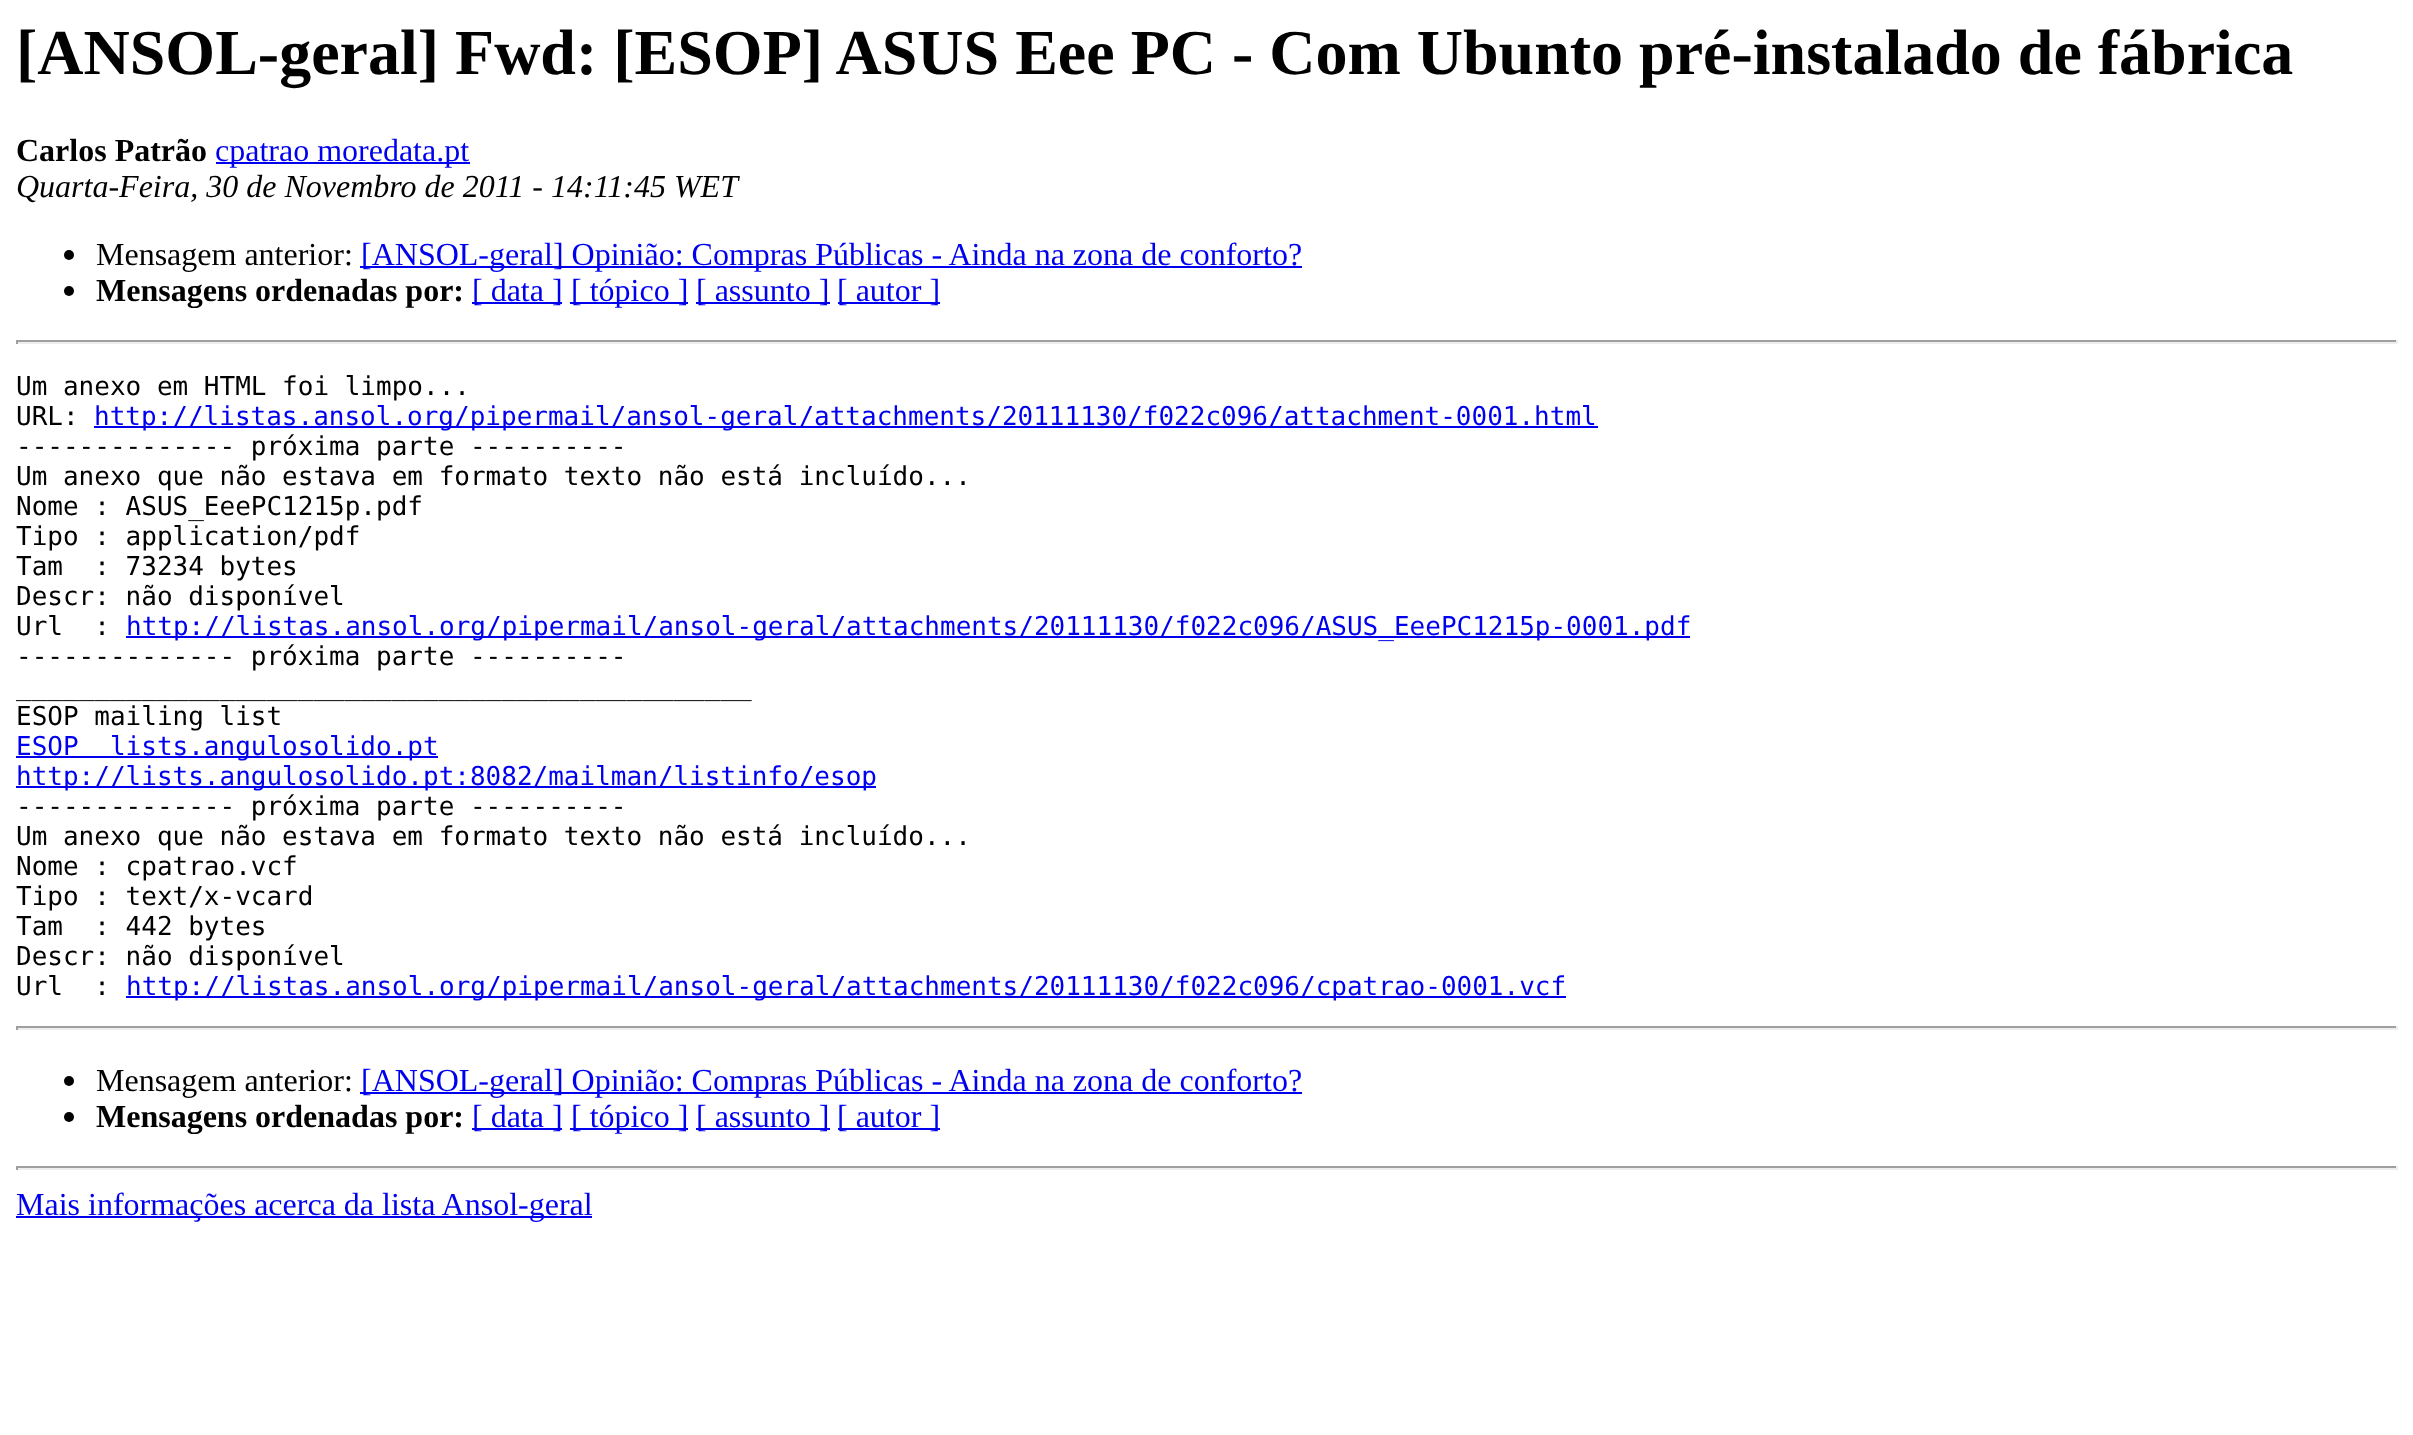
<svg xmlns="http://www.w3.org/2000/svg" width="2413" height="1435">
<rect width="100%" height="100%" fill="#fff"/>
<text x="16" y="74" style="font-family:Liberation Serif;font-size:64px;font-weight:bold;fill:#000">[ANSOL-geral] Fwd: [ESOP] ASUS Eee PC - Com Ubunto pré-instalado de fábrica</text>
<text x="16" y="161" style="font-family:Liberation Serif;font-size:32px;font-weight:bold;fill:#000">Carlos Patrão</text>
<rect x="216" y="162" width="254" height="2" fill="#00e"/>
<text x="215" y="161" style="font-family:Liberation Serif;font-size:32px;fill:#00e">cpatrao moredata.pt</text>
<text x="16" y="197" style="font-family:Liberation Serif;font-size:32px;font-style:italic;fill:#000">Quarta-Feira, 30 de Novembro de 2011 - 14:11:45 WET</text>
<circle cx="69" cy="255" r="5" fill="#000"/>
<text x="96" y="265" style="font-family:Liberation Serif;font-size:32px;fill:#000">Mensagem anterior:</text>
<rect x="360" y="266" width="942" height="2" fill="#00e"/>
<text x="361" y="265" style="font-family:Liberation Serif;font-size:32px;fill:#00e">[ANSOL-geral] Opinião: Compras Públicas - Ainda na zona de conforto?</text>
<circle cx="69" cy="291" r="5" fill="#000"/>
<text x="96" y="301" style="font-family:Liberation Serif;font-size:32px;font-weight:bold;fill:#000">Mensagens ordenadas por:</text>
<rect x="472" y="302" width="90" height="2" fill="#00e"/>
<text x="472" y="301" style="font-family:Liberation Serif;font-size:32px;fill:#00e">[ data ]</text>
<rect x="570" y="302" width="118" height="2" fill="#00e"/>
<text x="571" y="301" style="font-family:Liberation Serif;font-size:32px;fill:#00e">[ tópico ]</text>
<rect x="696" y="302" width="134" height="2" fill="#00e"/>
<text x="696" y="301" style="font-family:Liberation Serif;font-size:32px;fill:#00e">[ assunto ]</text>
<rect x="838" y="302" width="102" height="2" fill="#00e"/>
<text x="837" y="301" style="font-family:Liberation Serif;font-size:32px;fill:#00e">[ autor ]</text>
<rect x="16" y="340" width="2382" height="2" fill="#9f9f9f"/>
<rect x="2396" y="340" width="2" height="4" fill="#eee"/>
<rect x="16" y="342" width="2382" height="2" fill="#eee"/>
<rect x="16" y="340" width="2" height="4" fill="#9f9f9f"/>
<text x="16" y="395" style="font-family:DejaVu Sans Mono;font-size:26px;fill:#000">Um anexo em HTML foi limpo...</text>
<text x="16" y="425" style="font-family:DejaVu Sans Mono;font-size:26px;fill:#000">URL:</text>
<rect x="94" y="426" width="1504" height="2" fill="#00e"/>
<text x="94" y="425" style="font-family:DejaVu Sans Mono;font-size:26px;fill:#00e">http://listas.ansol.org/pipermail/ansol-geral/attachments/20111130/f022c096/attachment-0001.html</text>
<text x="16" y="455" style="font-family:DejaVu Sans Mono;font-size:26px;fill:#000">-------------- próxima parte ----------</text>
<text x="16" y="485" style="font-family:DejaVu Sans Mono;font-size:26px;fill:#000">Um anexo que não estava em formato texto não está incluído...</text>
<text x="16" y="515" style="font-family:DejaVu Sans Mono;font-size:26px;fill:#000">Nome : ASUS_EeePC1215p.pdf</text>
<text x="16" y="545" style="font-family:DejaVu Sans Mono;font-size:26px;fill:#000">Tipo : application/pdf</text>
<text x="16" y="575" style="font-family:DejaVu Sans Mono;font-size:26px;fill:#000" xml:space="preserve">Tam  : 73234 bytes</text>
<text x="16" y="605" style="font-family:DejaVu Sans Mono;font-size:26px;fill:#000">Descr: não disponível</text>
<text x="16" y="635" style="font-family:DejaVu Sans Mono;font-size:26px;fill:#000" xml:space="preserve">Url  :</text>
<rect x="126" y="636" width="1564" height="2" fill="#00e"/>
<text x="126" y="635" style="font-family:DejaVu Sans Mono;font-size:26px;fill:#00e">http://listas.ansol.org/pipermail/ansol-geral/attachments/20111130/f022c096/ASUS_EeePC1215p-0001.pdf</text>
<text x="16" y="665" style="font-family:DejaVu Sans Mono;font-size:26px;fill:#000">-------------- próxima parte ----------</text>
<text x="16" y="695" style="font-family:DejaVu Sans Mono;font-size:26px;fill:#000">_______________________________________________</text>
<text x="16" y="725" style="font-family:DejaVu Sans Mono;font-size:26px;fill:#000">ESOP mailing list</text>
<rect x="16" y="756" width="422" height="2" fill="#00e"/>
<text x="16" y="755" style="font-family:DejaVu Sans Mono;font-size:26px;fill:#00e" xml:space="preserve">ESOP  lists.angulosolido.pt</text>
<rect x="16" y="786" width="860" height="2" fill="#00e"/>
<text x="16" y="785" style="font-family:DejaVu Sans Mono;font-size:26px;fill:#00e">http://lists.angulosolido.pt:8082/mailman/listinfo/esop</text>
<text x="16" y="815" style="font-family:DejaVu Sans Mono;font-size:26px;fill:#000">-------------- próxima parte ----------</text>
<text x="16" y="845" style="font-family:DejaVu Sans Mono;font-size:26px;fill:#000">Um anexo que não estava em formato texto não está incluído...</text>
<text x="16" y="875" style="font-family:DejaVu Sans Mono;font-size:26px;fill:#000">Nome : cpatrao.vcf</text>
<text x="16" y="905" style="font-family:DejaVu Sans Mono;font-size:26px;fill:#000">Tipo : text/x-vcard</text>
<text x="16" y="935" style="font-family:DejaVu Sans Mono;font-size:26px;fill:#000" xml:space="preserve">Tam  : 442 bytes</text>
<text x="16" y="965" style="font-family:DejaVu Sans Mono;font-size:26px;fill:#000">Descr: não disponível</text>
<text x="16" y="995" style="font-family:DejaVu Sans Mono;font-size:26px;fill:#000" xml:space="preserve">Url  :</text>
<rect x="126" y="996" width="1440" height="2" fill="#00e"/>
<text x="126" y="995" style="font-family:DejaVu Sans Mono;font-size:26px;fill:#00e">http://listas.ansol.org/pipermail/ansol-geral/attachments/20111130/f022c096/cpatrao-0001.vcf</text>
<rect x="16" y="1026" width="2382" height="2" fill="#9f9f9f"/>
<rect x="2396" y="1026" width="2" height="4" fill="#eee"/>
<rect x="16" y="1028" width="2382" height="2" fill="#eee"/>
<rect x="16" y="1026" width="2" height="4" fill="#9f9f9f"/>
<circle cx="69" cy="1081" r="5" fill="#000"/>
<text x="96" y="1091" style="font-family:Liberation Serif;font-size:32px;fill:#000">Mensagem anterior:</text>
<rect x="360" y="1092" width="942" height="2" fill="#00e"/>
<text x="361" y="1091" style="font-family:Liberation Serif;font-size:32px;fill:#00e">[ANSOL-geral] Opinião: Compras Públicas - Ainda na zona de conforto?</text>
<circle cx="69" cy="1117" r="5" fill="#000"/>
<text x="96" y="1127" style="font-family:Liberation Serif;font-size:32px;font-weight:bold;fill:#000">Mensagens ordenadas por:</text>
<rect x="472" y="1128" width="90" height="2" fill="#00e"/>
<text x="472" y="1127" style="font-family:Liberation Serif;font-size:32px;fill:#00e">[ data ]</text>
<rect x="570" y="1128" width="118" height="2" fill="#00e"/>
<text x="571" y="1127" style="font-family:Liberation Serif;font-size:32px;fill:#00e">[ tópico ]</text>
<rect x="696" y="1128" width="134" height="2" fill="#00e"/>
<text x="696" y="1127" style="font-family:Liberation Serif;font-size:32px;fill:#00e">[ assunto ]</text>
<rect x="838" y="1128" width="102" height="2" fill="#00e"/>
<text x="837" y="1127" style="font-family:Liberation Serif;font-size:32px;fill:#00e">[ autor ]</text>
<rect x="16" y="1166" width="2382" height="2" fill="#9f9f9f"/>
<rect x="2396" y="1166" width="2" height="4" fill="#eee"/>
<rect x="16" y="1168" width="2382" height="2" fill="#eee"/>
<rect x="16" y="1166" width="2" height="4" fill="#9f9f9f"/>
<rect x="16" y="1216" width="576" height="2" fill="#00e"/>
<text x="16" y="1215" style="font-family:Liberation Serif;font-size:32px;fill:#00e">Mais informações acerca da lista Ansol-geral</text>
</svg>
